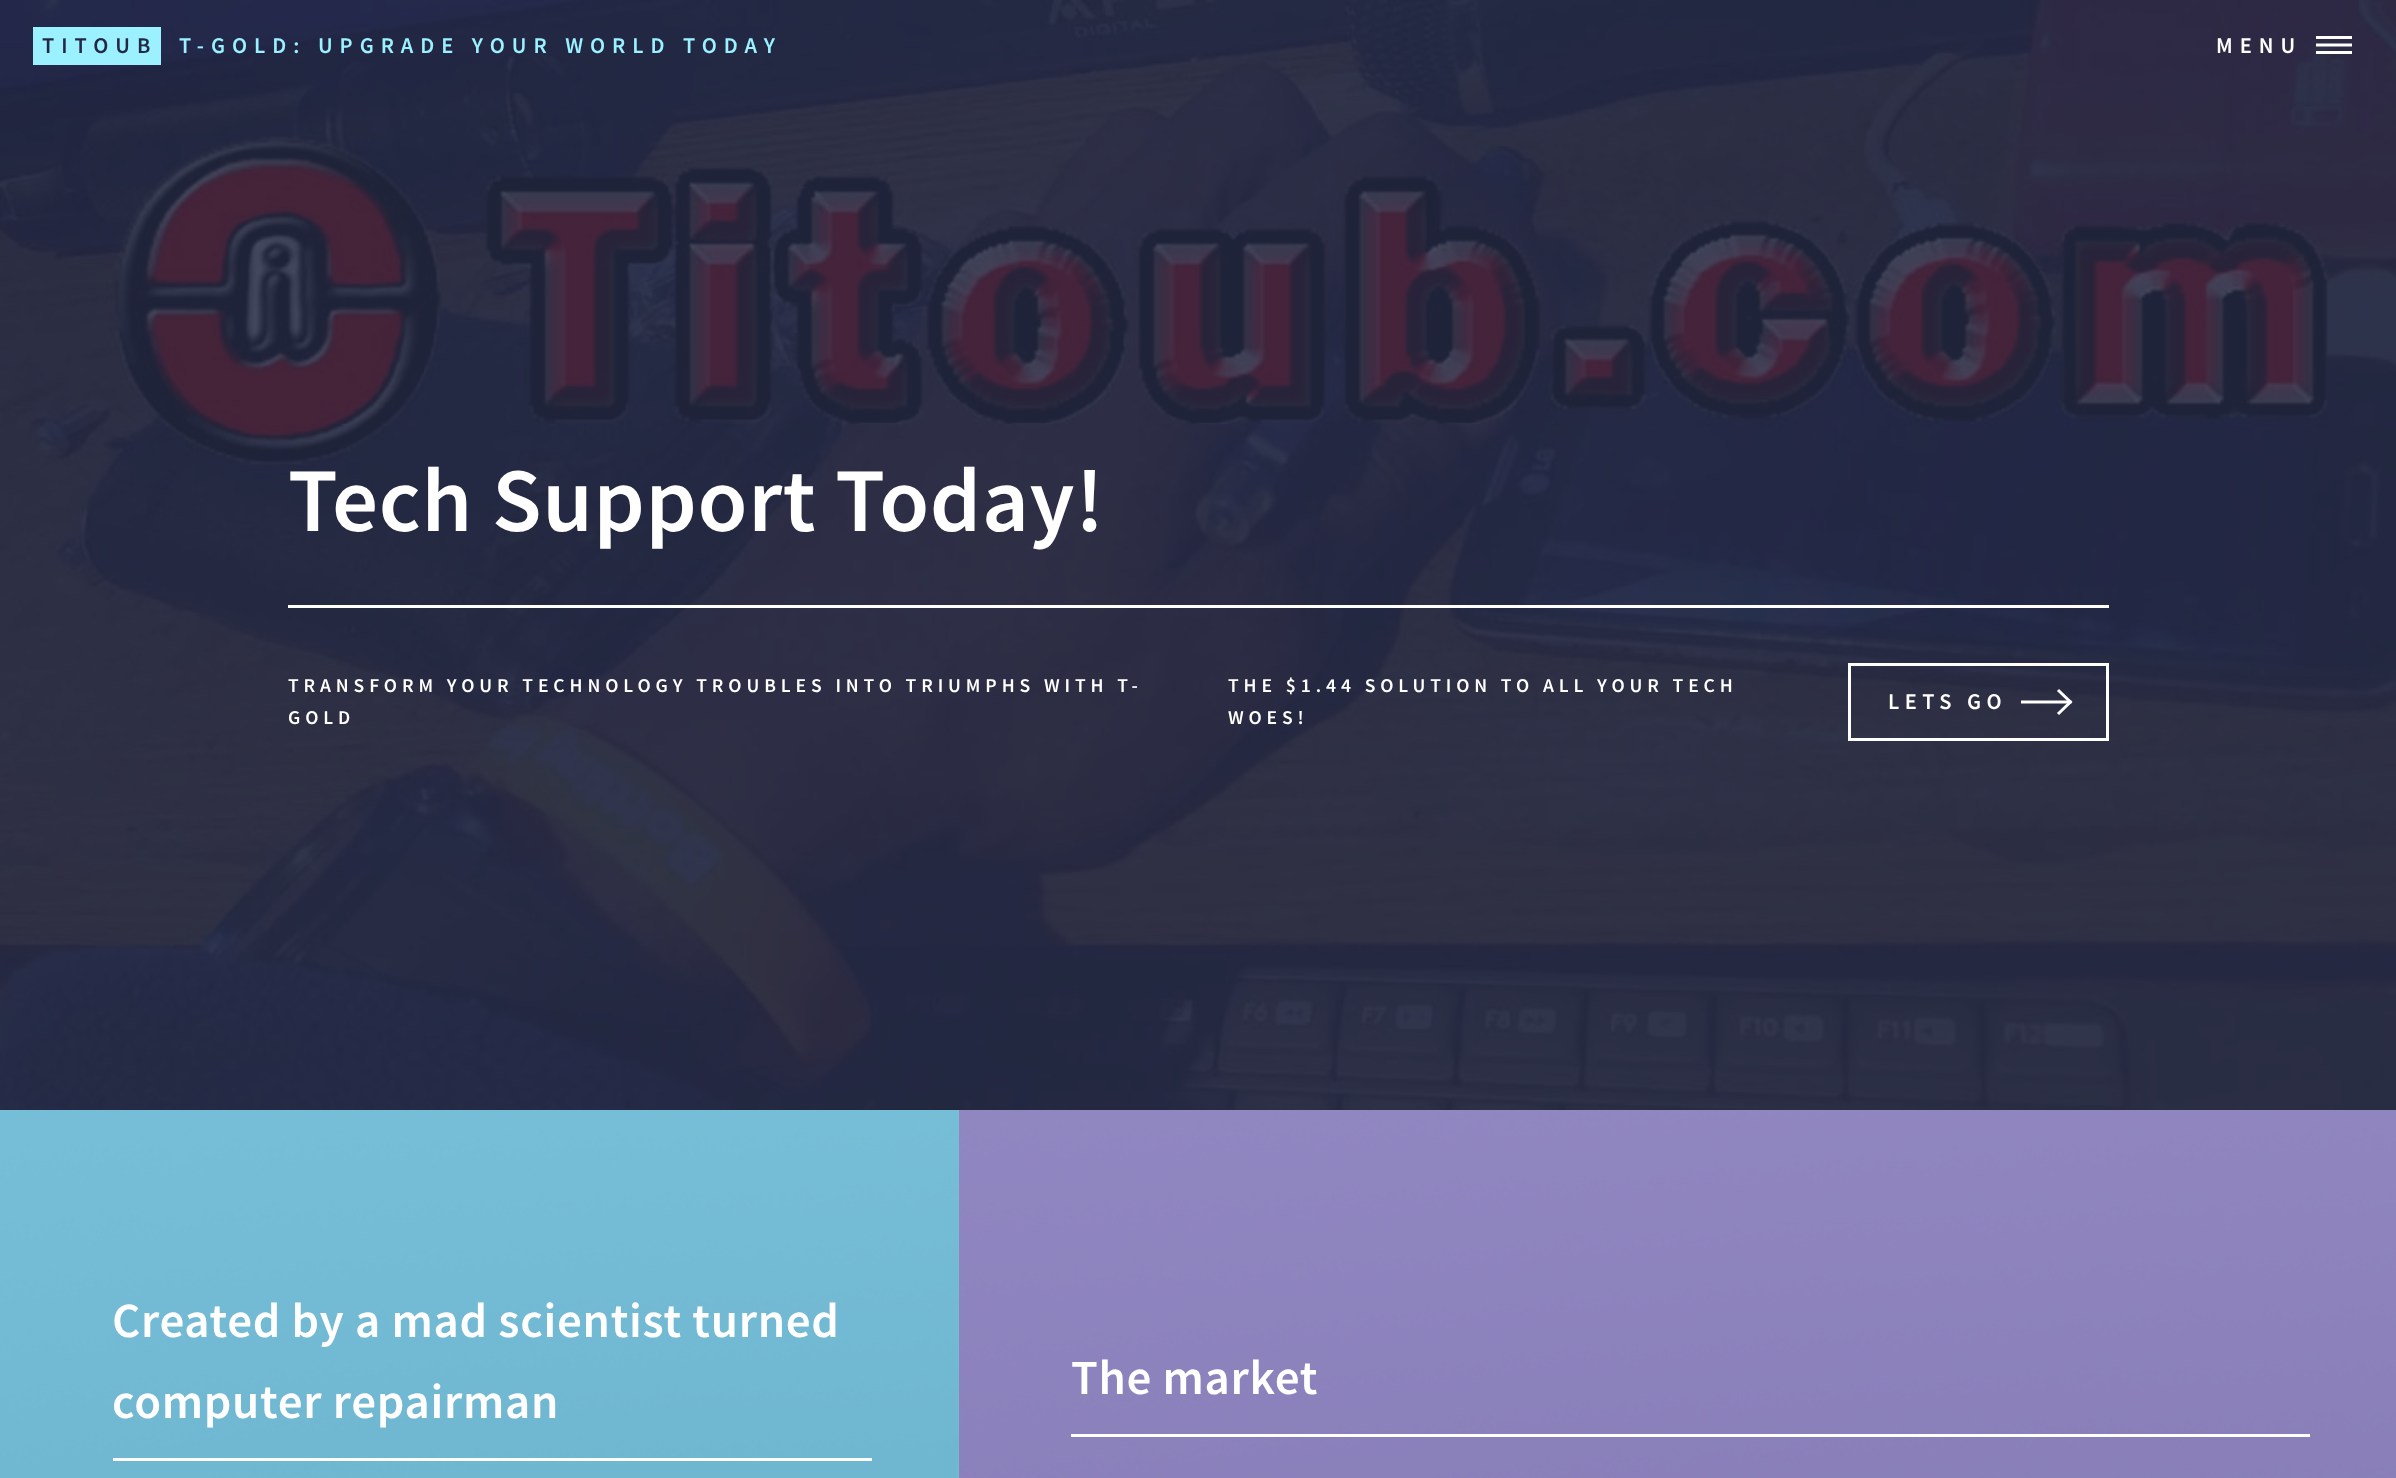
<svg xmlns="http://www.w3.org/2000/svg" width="2396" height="1478">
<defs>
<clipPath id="clip1"><rect x="2021" y="684" width="54" height="36"/></clipPath>
</defs>
<rect width="100%" height="100%" fill="#fff"/>
<image x="0" y="0" width="2396" height="1110" href="media/1.png"/>
<rect x="33" y="27" width="128" height="38" fill="#9bf1ff"/>
<text x="42" y="53" style="font-family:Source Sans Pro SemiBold;font-size:22.4px;font-weight:600;letter-spacing:7px;fill:#242943">TITOUB</text>
<text x="179" y="53" style="font-family:Source Sans Pro SemiBold;font-size:22.4px;font-weight:600;letter-spacing:7px;fill:#9bf1ff">T-GOLD: UPGRADE YOUR WORLD TODAY</text>
<text x="2216" y="53" style="font-family:Source Sans Pro SemiBold;font-size:22.4px;font-weight:600;letter-spacing:7px;fill:#fff">MENU</text>
<rect x="2316" y="36" width="36" height="3" fill="#fff"/>
<rect x="2316" y="51" width="36" height="3" fill="#fff"/>
<path d="M2316 45h36" fill="none" stroke="#fff" stroke-width="3"/>
<text x="288" y="531" style="font-family:Source Sans Pro SemiBold;font-size:91px;font-weight:600;letter-spacing:0.7px;fill:#fff">Tech Support Today!</text>
<rect x="288" y="605" width="1821" height="3" fill="#fff"/>
<text x="288" y="692" style="font-family:Source Sans Pro SemiBold;font-size:19.6px;font-weight:600;letter-spacing:4.9px;fill:#fff">TRANSFORM YOUR TECHNOLOGY TROUBLES INTO TRIUMPHS WITH T-</text>
<text x="288" y="724" style="font-family:Source Sans Pro SemiBold;font-size:19.6px;font-weight:600;letter-spacing:4.9px;fill:#fff">GOLD</text>
<text x="1228" y="692" style="font-family:Source Sans Pro SemiBold;font-size:19.6px;font-weight:600;letter-spacing:4.9px;fill:#fff">THE $1.44 SOLUTION TO ALL YOUR TECH</text>
<text x="1228" y="724" style="font-family:Source Sans Pro SemiBold;font-size:19.6px;font-weight:600;letter-spacing:4.9px;fill:#fff">WOES!</text>
<rect x="1849.5" y="664.5" width="258" height="75" fill="none" stroke="#fff" stroke-width="3"/>
<text x="1888" y="709" style="font-family:Source Sans Pro SemiBold;font-size:22.4px;font-weight:600;letter-spacing:5.5px;fill:#fff">LETS GO</text>
<g clip-path="url(#clip1)">
<path d="M2020.5 702h51" fill="none" stroke="#fff" stroke-width="3"/>
</g>
<path d="M2058 690l13.5 13m-13.5 11l13.5-13" fill="none" stroke="#fff" stroke-width="3"/>
<image x="0" y="1110" width="959" height="368" href="media/2.png"/>
<image x="958" y="1110" width="1438" height="368" href="media/3.png"/>
<rect y="1110" width="959" height="368" fill="#24294340"/>
<rect y="1110" width="959" height="368" fill="#6fc3dfd9"/>
<text x="112" y="1337" style="font-family:Source Sans Pro SemiBold;font-size:49px;font-weight:600;letter-spacing:0.7px;fill:#fff">Created by a mad scientist turned</text>
<text x="112" y="1418" style="font-family:Source Sans Pro SemiBold;font-size:49px;font-weight:600;letter-spacing:0.7px;fill:#fff">computer repairman</text>
<rect x="113" y="1458" width="759" height="3" fill="#fff"/>
<text x="1071" y="1394" style="font-family:Source Sans Pro SemiBold;font-size:49px;font-weight:600;letter-spacing:0.7px;fill:#fff">The market</text>
<rect x="1071" y="1434" width="1239" height="3" fill="#fff"/>
</svg>
